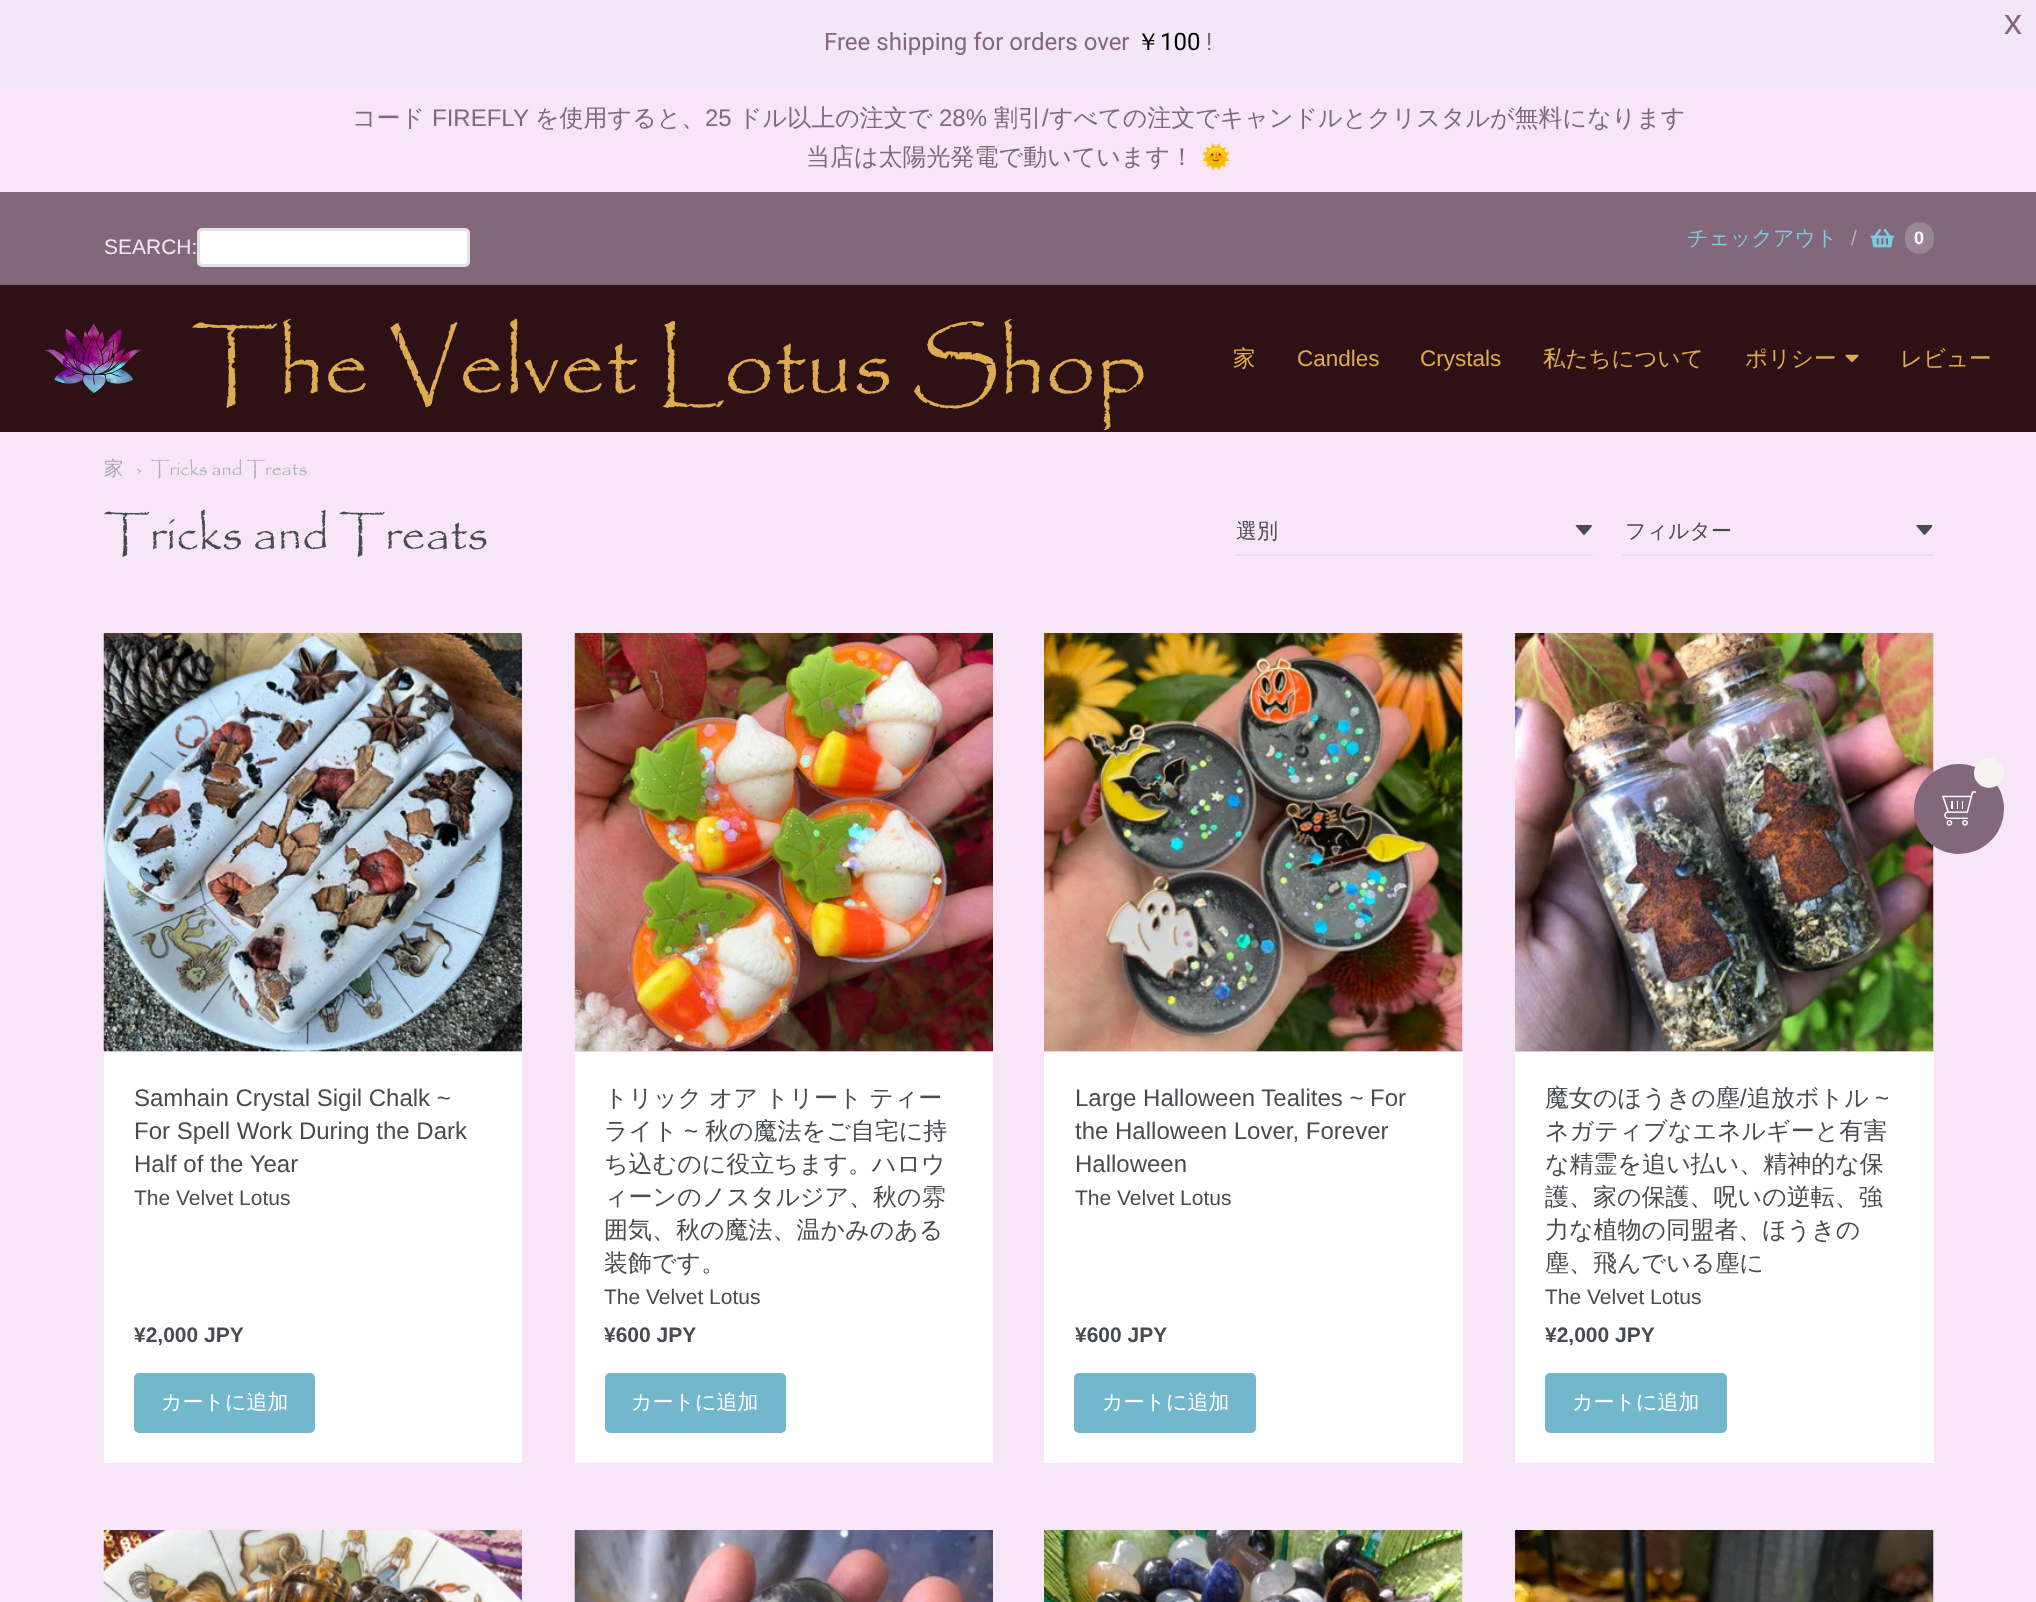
<svg xmlns="http://www.w3.org/2000/svg" width="2036" height="1602">
<rect width="100%" height="100%" fill="#2e1114"/>
<rect width="2036" height="84" fill="#f3e6f8"/>
<text x="2004" y="34" style="font-family:Liberation Sans;font-size:36px;fill:#83677b">x</text>
<text x="824" y="50" style="font-family:Roboto;font-size:24px;fill:#83677b">Free shipping for orders over</text>
<text x="1136" y="50" style="font-family:WenQuanYi Zen Hei;font-size:24px;font-weight:500;fill:#000">￥</text>
<text x="1160" y="50" style="font-family:Roboto;font-size:24px;fill:#000">100</text>
<text x="1206" y="50" style="font-family:Roboto;font-size:24px;fill:#83677b">!</text>
<rect y="84" width="2036" height="108" fill="#f8e5f7"/>
<text x="352" y="126" style="font-family:WenQuanYi Zen Hei;font-size:24px;font-weight:500;fill:#83677b">コード</text>
<text x="432" y="126" style="font-family:Liberation Sans;font-size:24px;fill:#83677b">FIREFLY</text>
<text x="535" y="126" style="font-family:WenQuanYi Zen Hei;font-size:24px;font-weight:500;fill:#83677b">を使用すると、</text>
<text x="705" y="126" style="font-family:Liberation Sans;font-size:24px;fill:#83677b">25</text>
<text x="738" y="126" style="font-family:WenQuanYi Zen Hei;font-size:24px;font-weight:500;fill:#83677b">ドル以上の注文で</text>
<text x="939" y="126" style="font-family:Liberation Sans;font-size:24px;fill:#83677b">28%</text>
<text x="994" y="126" style="font-family:WenQuanYi Zen Hei;font-size:24px;font-weight:500;fill:#83677b">割引</text>
<text x="1042" y="126" style="font-family:Liberation Sans;font-size:24px;fill:#83677b">/</text>
<text x="1049" y="126" style="font-family:WenQuanYi Zen Hei;font-size:24px;font-weight:500;fill:#83677b">すべての注文でキャンドルとクリスタルが無料になります</text>
<text x="806" y="165" style="font-family:WenQuanYi Zen Hei;font-size:24px;font-weight:500;fill:#83677b">当店は太陽光発電で動いています！</text>
<text x="1201" y="165" style="font-family:Noto Color Emoji;font-size:24px;fill:#83677b">🌞</text>
<rect y="192" width="2036" height="93" fill="#83677b"/>
<text x="104" y="254" style="font-family:Liberation Sans;font-size:21px;fill:#f8e5f7">SEARCH:</text>
<rect x="198.5" y="229.5" width="270" height="36" rx="3.5" fill="#fff" stroke="#e1e3e4" stroke-width="3"/>
<text x="1687" y="245" style="font-family:WenQuanYi Zen Hei;font-size:21px;font-weight:500;fill:#7ec9e0">チェックアウト</text>
<text x="1851" y="245" style="font-family:Liberation Sans;font-size:21px;fill:#bea6b9">/</text>
<image x="1870" y="229" width="25" height="19" href="media/1.png"/>
<rect x="1905" y="222" width="29" height="32" rx="14.5" fill="#9c8595"/>
<text x="1914" y="244" style="font-family:Liberation Sans;font-size:18px;font-weight:bold;fill:#fff">0</text>
<image x="45" y="324" width="98" height="69" href="media/2.png"/>
<text x="192" y="393" style="font-family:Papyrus;font-size:90px;fill:#ddab51">The Velvet Lotus Shop</text>
<text x="1233" y="366" style="font-family:WenQuanYi Zen Hei;font-size:22.5px;font-weight:500;fill:#ddab51">家</text>
<text x="1297" y="366" style="font-family:Liberation Sans;font-size:22.5px;fill:#ddab51">Candles</text>
<text x="1420" y="366" style="font-family:Liberation Sans;font-size:22.5px;fill:#ddab51">Crystals</text>
<text x="1543" y="366" style="font-family:WenQuanYi Zen Hei;font-size:22.5px;font-weight:500;fill:#ddab51">私たちについて</text>
<text x="1745" y="366" style="font-family:WenQuanYi Zen Hei;font-size:22.5px;font-weight:500;fill:#ddab51">ポリシー</text>
<image x="1845" y="354" width="14" height="9" href="media/3.png"/>
<text x="1900" y="366" style="font-family:WenQuanYi Zen Hei;font-size:22.5px;font-weight:500;fill:#ddab51">レビュー</text>
<rect y="432" width="2036" height="1170" fill="#f8e5f7"/>
<text x="104" y="475" style="font-family:WenQuanYi Zen Hei;font-size:19.5px;font-weight:500;fill:#a9aaaa">家</text>
<text x="136" y="475" style="font-family:Papyrus;font-size:19.5px;fill:#a9aaaa">›</text>
<text x="151" y="475" style="font-family:Papyrus;font-size:19.5px;fill:#a9aaaa">Tricks and Treats</text>
<text x="104" y="549" style="font-family:Papyrus;font-size:48px;fill:#484b4f">Tricks and Treats</text>
<image x="1575" y="525" width="17" height="10" href="media/4.png"/>
<rect x="1235" y="554" width="358" height="2" fill="#e1e3e4"/>
<text x="1236" y="538" style="font-family:WenQuanYi Zen Hei;font-size:21px;font-weight:500;fill:#484b4f">選別</text>
<image x="1916" y="525" width="17" height="10" href="media/5.png"/>
<rect x="1622" y="554" width="312" height="2" fill="#e1e3e4"/>
<text x="1625" y="538" style="font-family:WenQuanYi Zen Hei;font-size:21px;font-weight:500;fill:#484b4f">フィルター</text>
<image x="103" y="633" width="419" height="419" href="media/6.png"/>
<rect x="104" y="1052" width="418" height="411" fill="#fff"/>
<text x="134" y="1106" style="font-family:Liberation Sans;font-size:24px;fill:#484b4f">Samhain Crystal Sigil Chalk ~</text>
<text x="134" y="1139" style="font-family:Liberation Sans;font-size:24px;fill:#484b4f">For Spell Work During the Dark</text>
<text x="134" y="1172" style="font-family:Liberation Sans;font-size:24px;fill:#484b4f">Half of the Year</text>
<text x="134" y="1205" style="font-family:Liberation Sans;font-size:21px;fill:#484b4f">The Velvet Lotus</text>
<text x="134" y="1342" style="font-family:Liberation Sans;font-size:21px;font-weight:bold;fill:#484b4f">¥2,000 JPY</text>
<rect x="135.5" y="1374.5" width="178" height="57" rx="3.5" fill="#73b7cc" stroke="#73b7cc" stroke-width="3"/>
<text x="161" y="1409" style="font-family:WenQuanYi Zen Hei;font-size:21px;font-weight:500;fill:#fff">カートに追加</text>
<image x="574" y="633" width="419" height="419" href="media/7.png"/>
<rect x="575" y="1052" width="418" height="411" fill="#fff"/>
<text x="604" y="1106" word-spacing="-0.5" style="font-family:WenQuanYi Zen Hei;font-size:24px;font-weight:500;fill:#484b4f">トリック オア トリート ティー</text>
<text x="604" y="1139" style="font-family:WenQuanYi Zen Hei;font-size:24px;font-weight:500;fill:#484b4f">ライト</text>
<text x="684" y="1139" style="font-family:Liberation Sans;font-size:24px;fill:#484b4f">~</text>
<text x="705" y="1139" style="font-family:WenQuanYi Zen Hei;font-size:24px;font-weight:500;fill:#484b4f">秋の魔法をご自宅に持</text>
<text x="604" y="1172" style="font-family:WenQuanYi Zen Hei;font-size:24px;font-weight:500;fill:#484b4f">ち込むのに役立ちます。ハロウ</text>
<text x="604" y="1205" style="font-family:WenQuanYi Zen Hei;font-size:24px;font-weight:500;fill:#484b4f">ィーンのノスタルジア、秋の雰</text>
<text x="604" y="1238" style="font-family:WenQuanYi Zen Hei;font-size:24px;font-weight:500;fill:#484b4f">囲気、秋の魔法、温かみのある</text>
<text x="604" y="1271" style="font-family:WenQuanYi Zen Hei;font-size:24px;font-weight:500;fill:#484b4f">装飾です。</text>
<text x="604" y="1304" style="font-family:Liberation Sans;font-size:21px;fill:#484b4f">The Velvet Lotus</text>
<text x="604" y="1342" style="font-family:Liberation Sans;font-size:21px;font-weight:bold;fill:#484b4f">¥600 JPY</text>
<rect x="606.5" y="1374.5" width="178" height="57" rx="3.5" fill="#73b7cc" stroke="#73b7cc" stroke-width="3"/>
<text x="631" y="1409" style="font-family:WenQuanYi Zen Hei;font-size:21px;font-weight:500;fill:#fff">カートに追加</text>
<image x="1044" y="633" width="419" height="419" href="media/8.png"/>
<rect x="1044" y="1052" width="419" height="411" fill="#fff"/>
<text x="1075" y="1106" style="font-family:Liberation Sans;font-size:24px;fill:#484b4f">Large Halloween Tealites ~ For</text>
<text x="1075" y="1139" style="font-family:Liberation Sans;font-size:24px;fill:#484b4f">the Halloween Lover, Forever</text>
<text x="1075" y="1172" style="font-family:Liberation Sans;font-size:24px;fill:#484b4f">Halloween</text>
<text x="1075" y="1205" style="font-family:Liberation Sans;font-size:21px;fill:#484b4f">The Velvet Lotus</text>
<text x="1075" y="1342" style="font-family:Liberation Sans;font-size:21px;font-weight:bold;fill:#484b4f">¥600 JPY</text>
<rect x="1075.5" y="1374.5" width="179" height="57" rx="3.5" fill="#73b7cc" stroke="#73b7cc" stroke-width="3"/>
<text x="1102" y="1409" style="font-family:WenQuanYi Zen Hei;font-size:21px;font-weight:500;fill:#fff">カートに追加</text>
<image x="1515" y="633" width="419" height="419" href="media/9.png"/>
<rect x="1515" y="1052" width="419" height="411" fill="#fff"/>
<text x="1545" y="1106" style="font-family:WenQuanYi Zen Hei;font-size:24px;font-weight:500;fill:#484b4f">魔女のほうきの塵</text>
<text x="1740" y="1106" style="font-family:Liberation Sans;font-size:24px;fill:#484b4f">/</text>
<text x="1747" y="1106" style="font-family:WenQuanYi Zen Hei;font-size:24px;font-weight:500;fill:#484b4f">追放ボトル</text>
<text x="1875" y="1106" style="font-family:Liberation Sans;font-size:24px;fill:#484b4f">~</text>
<text x="1545" y="1139" style="font-family:WenQuanYi Zen Hei;font-size:24px;font-weight:500;fill:#484b4f">ネガティブなエネルギーと有害</text>
<text x="1545" y="1172" style="font-family:WenQuanYi Zen Hei;font-size:24px;font-weight:500;fill:#484b4f">な精霊を追い払い、精神的な保</text>
<text x="1545" y="1205" style="font-family:WenQuanYi Zen Hei;font-size:24px;font-weight:500;fill:#484b4f">護、家の保護、呪いの逆転、強</text>
<text x="1545" y="1238" style="font-family:WenQuanYi Zen Hei;font-size:24px;font-weight:500;fill:#484b4f">力な植物の同盟者、ほうきの</text>
<text x="1545" y="1271" style="font-family:WenQuanYi Zen Hei;font-size:24px;font-weight:500;fill:#484b4f">塵、飛んでいる塵に</text>
<text x="1545" y="1304" style="font-family:Liberation Sans;font-size:21px;fill:#484b4f">The Velvet Lotus</text>
<text x="1545" y="1342" style="font-family:Liberation Sans;font-size:21px;font-weight:bold;fill:#484b4f">¥2,000 JPY</text>
<rect x="1546.5" y="1374.5" width="179" height="57" rx="3.5" fill="#73b7cc" stroke="#73b7cc" stroke-width="3"/>
<text x="1572" y="1409" style="font-family:WenQuanYi Zen Hei;font-size:21px;font-weight:500;fill:#fff">カートに追加</text>
<image x="103" y="1530" width="419" height="72" href="media/10.png"/>
<image x="574" y="1530" width="419" height="72" href="media/11.png"/>
<image x="1044" y="1530" width="419" height="72" href="media/12.png"/>
<image x="1515" y="1530" width="419" height="72" href="media/13.png"/>
<circle cx="1959" cy="809" r="45" fill="#83677b"/>
<circle cx="1989" cy="773" r="15" fill="#f7f3f3"/>
<image x="1942" y="791" width="34" height="35" href="media/14.png"/>
</svg>
